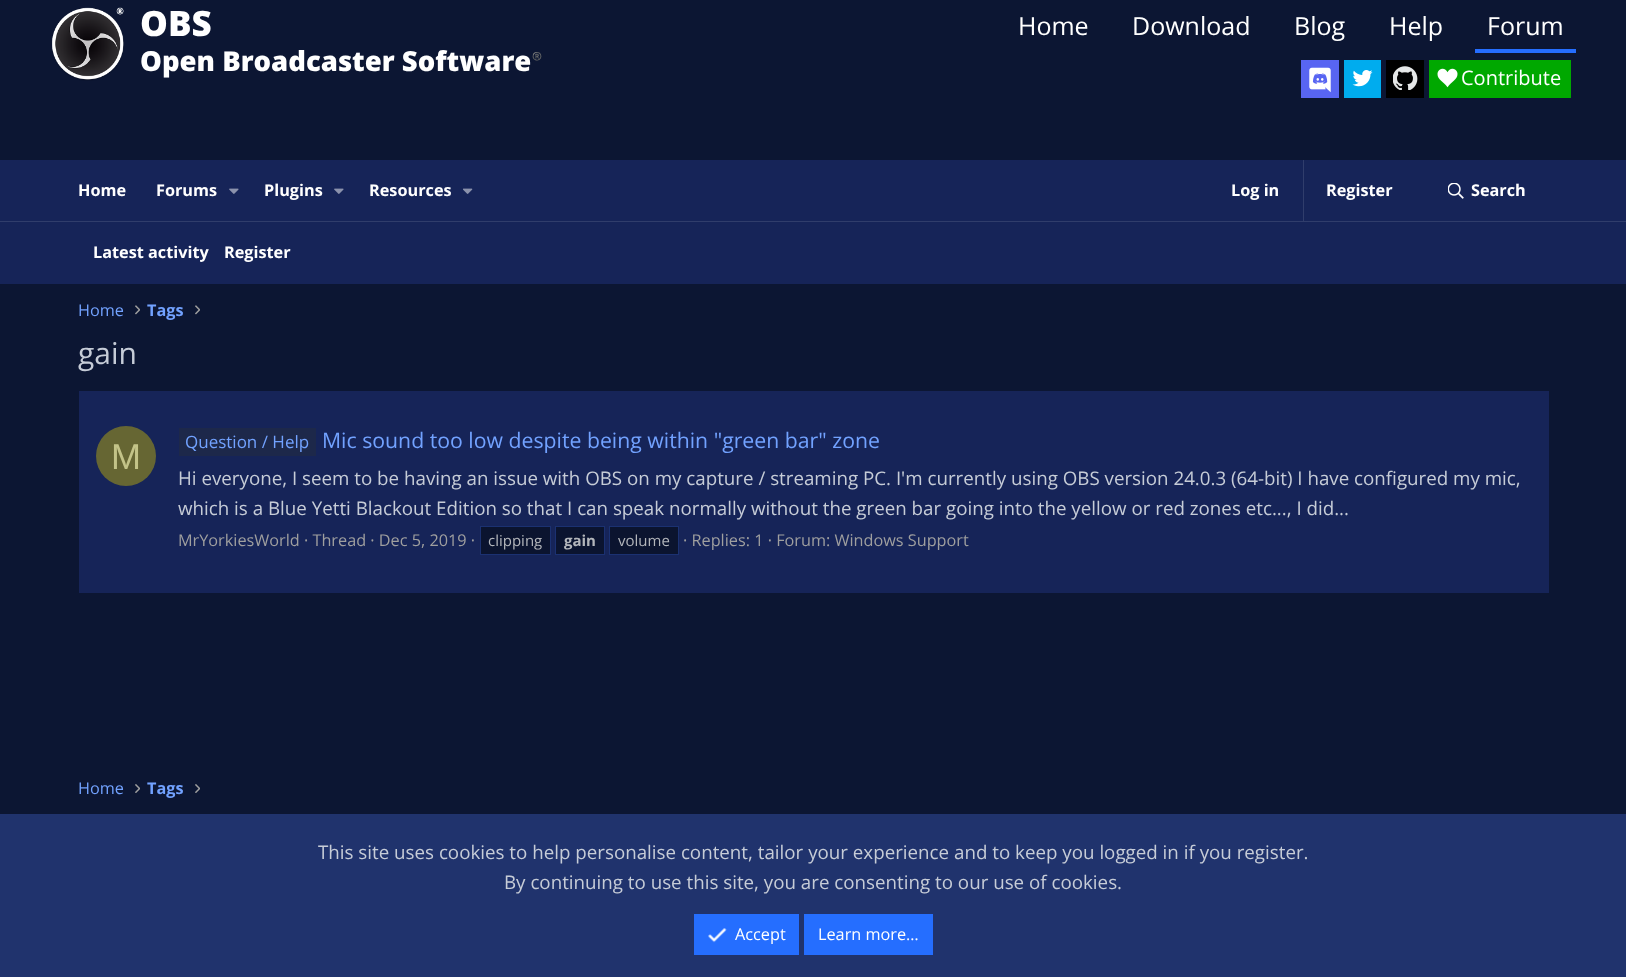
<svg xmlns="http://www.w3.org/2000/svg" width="1626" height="977">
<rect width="100%" height="100%" fill="#0c1633"/>
<image x="52" y="7" width="72" height="74" href="media/1.png"/>
<text x="140" y="36" style="font-family:Open Sans;font-size:35px;font-weight:800;fill:#fff">OBS</text>
<text x="140" y="71" style="font-family:Open Sans;font-size:27.5px;font-weight:800;fill:#fff">Open Broadcaster Software</text>
<text x="532" y="59" style="font-family:Noto Color Emoji;font-size:8px;font-weight:bold;fill:#fff">®️</text>
<text x="1018" y="35" style="font-family:Open Sans;font-size:25px;fill:#fff">Home</text>
<text x="1132" y="35" style="font-family:Open Sans;font-size:25px;fill:#fff">Download</text>
<text x="1294" y="35" style="font-family:Open Sans;font-size:25px;fill:#fff">Blog</text>
<text x="1389" y="35" style="font-family:Open Sans;font-size:25px;fill:#fff">Help</text>
<rect x="1475" y="49" width="101" height="4" fill="#256eff"/>
<text x="1487" y="35" style="font-family:Open Sans;font-size:25px;fill:#fff">Forum</text>
<rect x="1301" y="60" width="38" height="38" fill="#5865f2"/>
<image x="1309" y="67" width="22" height="26" href="media/2.png"/>
<rect x="1344" y="60" width="37" height="38" fill="#00acee"/>
<image x="1352" y="70" width="21" height="17" href="media/3.png"/>
<rect x="1386" y="60" width="38" height="38" fill="#000"/>
<image x="1393" y="66" width="25" height="24" href="media/4.png"/>
<rect x="1429" y="60" width="142" height="38" fill="#00a800"/>
<image x="1437" y="68" width="21" height="20" href="media/5.png"/>
<text x="1461" y="85" style="font-family:Open Sans;font-size:20px;fill:#fff">Contribute</text>
<rect y="160" width="1626" height="61" fill="#162458"/>
<text x="78" y="196" style="font-family:Open Sans;font-size:16.25px;font-weight:bold;fill:#fff">Home</text>
<text x="156" y="196" style="font-family:Open Sans;font-size:16.25px;font-weight:bold;fill:#fff">Forums</text>
<image x="229" y="188" width="10" height="6" href="media/6.png"/>
<text x="264" y="196" style="font-family:Open Sans;font-size:16.25px;font-weight:bold;fill:#fff">Plugins</text>
<image x="334" y="188" width="10" height="6" href="media/6.png"/>
<text x="369" y="196" style="font-family:Open Sans;font-size:16.25px;font-weight:bold;fill:#fff">Resources</text>
<image x="463" y="188" width="10" height="6" href="media/7.png"/>
<text x="1231" y="196" style="font-family:Open Sans;font-size:16.25px;font-weight:bold;fill:#fff">Log in</text>
<rect x="1303" y="160" width="1" height="61" fill="#303d6b"/>
<text x="1326" y="196" style="font-family:Open Sans;font-size:16.25px;font-weight:bold;fill:#fff">Register</text>
<image x="1448" y="183" width="16" height="16" href="media/8.png"/>
<text x="1471" y="196" style="font-family:Open Sans;font-size:16.25px;font-weight:bold;fill:#fff">Search</text>
<rect y="222" width="1626" height="62" fill="#162458"/>
<rect y="221" width="1626" height="1" fill="#303d6b"/>
<text x="93" y="258" style="font-family:Open Sans;font-size:16.25px;font-weight:bold;fill:#fff">Latest activity</text>
<text x="224" y="258" style="font-family:Open Sans;font-size:16.25px;font-weight:bold;fill:#fff">Register</text>
<text x="78" y="316" style="font-family:Open Sans;font-size:16.25px;fill:#72a2ff">Home</text>
<image x="135" y="305" width="5" height="10" href="media/9.png"/>
<text x="147" y="316" style="font-family:Open Sans;font-size:16.25px;font-weight:bold;fill:#72a2ff">Tags</text>
<image x="195" y="305" width="5" height="10" href="media/9.png"/>
<text x="78" y="364" style="font-family:Open Sans;font-size:30px;fill:#c6ccd7">gain</text>
<rect x="79" y="391" width="1470" height="202" fill="#162458"/>
<circle cx="126" cy="456" r="30" fill="#663"/>
<text x="111" y="469" style="font-family:Liberation Sans;font-size:36px;fill:#c3c388">M</text>
<rect x="179" y="428" width="137" height="28" fill="#1d284a"/>
<text x="185" y="448" style="font-family:Open Sans;font-size:17px;fill:#72a2ff">Question / Help</text>
<text x="322" y="448" style="font-family:Open Sans;font-size:21.25px;fill:#72a2ff">Mic sound too low despite being within "green bar" zone</text>
<text x="178" y="485" style="font-family:Open Sans;font-size:18.75px;fill:#c6ccd7">Hi everyone, I seem to be having an issue with OBS on my capture / streaming PC. I'm currently using OBS version 24.0.3 (64-bit) I have configured my mic,</text>
<text x="178" y="515" style="font-family:Open Sans;font-size:18.75px;fill:#c6ccd7">which is a Blue Yetti Blackout Edition so that I can speak normally without the green bar going into the yellow or red zones etc..., I did...</text>
<text x="178" y="546" style="font-family:Open Sans;font-size:16.25px;fill:#9f9f9f">MrYorkiesWorld · Thread · Dec 5, 2019 ·</text>
<rect x="480.5" y="526.5" width="70" height="28" fill="#0b142f" stroke="#1b3171"/>
<text x="488" y="546" style="font-family:Open Sans;font-size:15px;fill:#b3b6bb">clipping</text>
<rect x="555.5" y="526.5" width="49" height="28" fill="#0b142f" stroke="#1b3171"/>
<text x="564" y="546" style="font-family:Open Sans;font-size:15px;font-weight:bold;fill:#b3b6bb">gain</text>
<rect x="609.5" y="526.5" width="69" height="28" fill="#0b142f" stroke="#1b3171"/>
<text x="618" y="546" style="font-family:Open Sans;font-size:15px;fill:#b3b6bb">volume</text>
<text x="683" y="546" style="font-family:Open Sans;font-size:16.25px;fill:#9f9f9f">· Replies: 1 · Forum: Windows Support</text>
<text x="78" y="794" style="font-family:Open Sans;font-size:16.25px;fill:#72a2ff">Home</text>
<image x="135" y="784" width="5" height="9" href="media/10.png"/>
<text x="147" y="794" style="font-family:Open Sans;font-size:16.25px;font-weight:bold;fill:#72a2ff">Tags</text>
<image x="195" y="784" width="5" height="9" href="media/10.png"/>
<rect y="814" width="1626" height="163" fill="#20336d"/>
<text x="318" y="859" style="font-family:Open Sans;font-size:18.75px;fill:#c6ccd7">This site uses cookies to help personalise content, tailor your experience and to keep you logged in if you register.</text>
<text x="504" y="889" style="font-family:Open Sans;font-size:18.75px;fill:#c6ccd7">By continuing to use this site, you are consenting to our use of cookies.</text>
<rect x="694" y="914" width="105" height="41" fill="#256eff"/>
<image x="708" y="928" width="19" height="15" href="media/11.png"/>
<text x="735" y="940" style="font-family:Open Sans;font-size:16.25px;fill:#fff">Accept</text>
<rect x="804" y="914" width="129" height="41" fill="#256eff"/>
<text x="818" y="940" style="font-family:Open Sans;font-size:16.25px;fill:#fff">Learn more…</text>
</svg>
